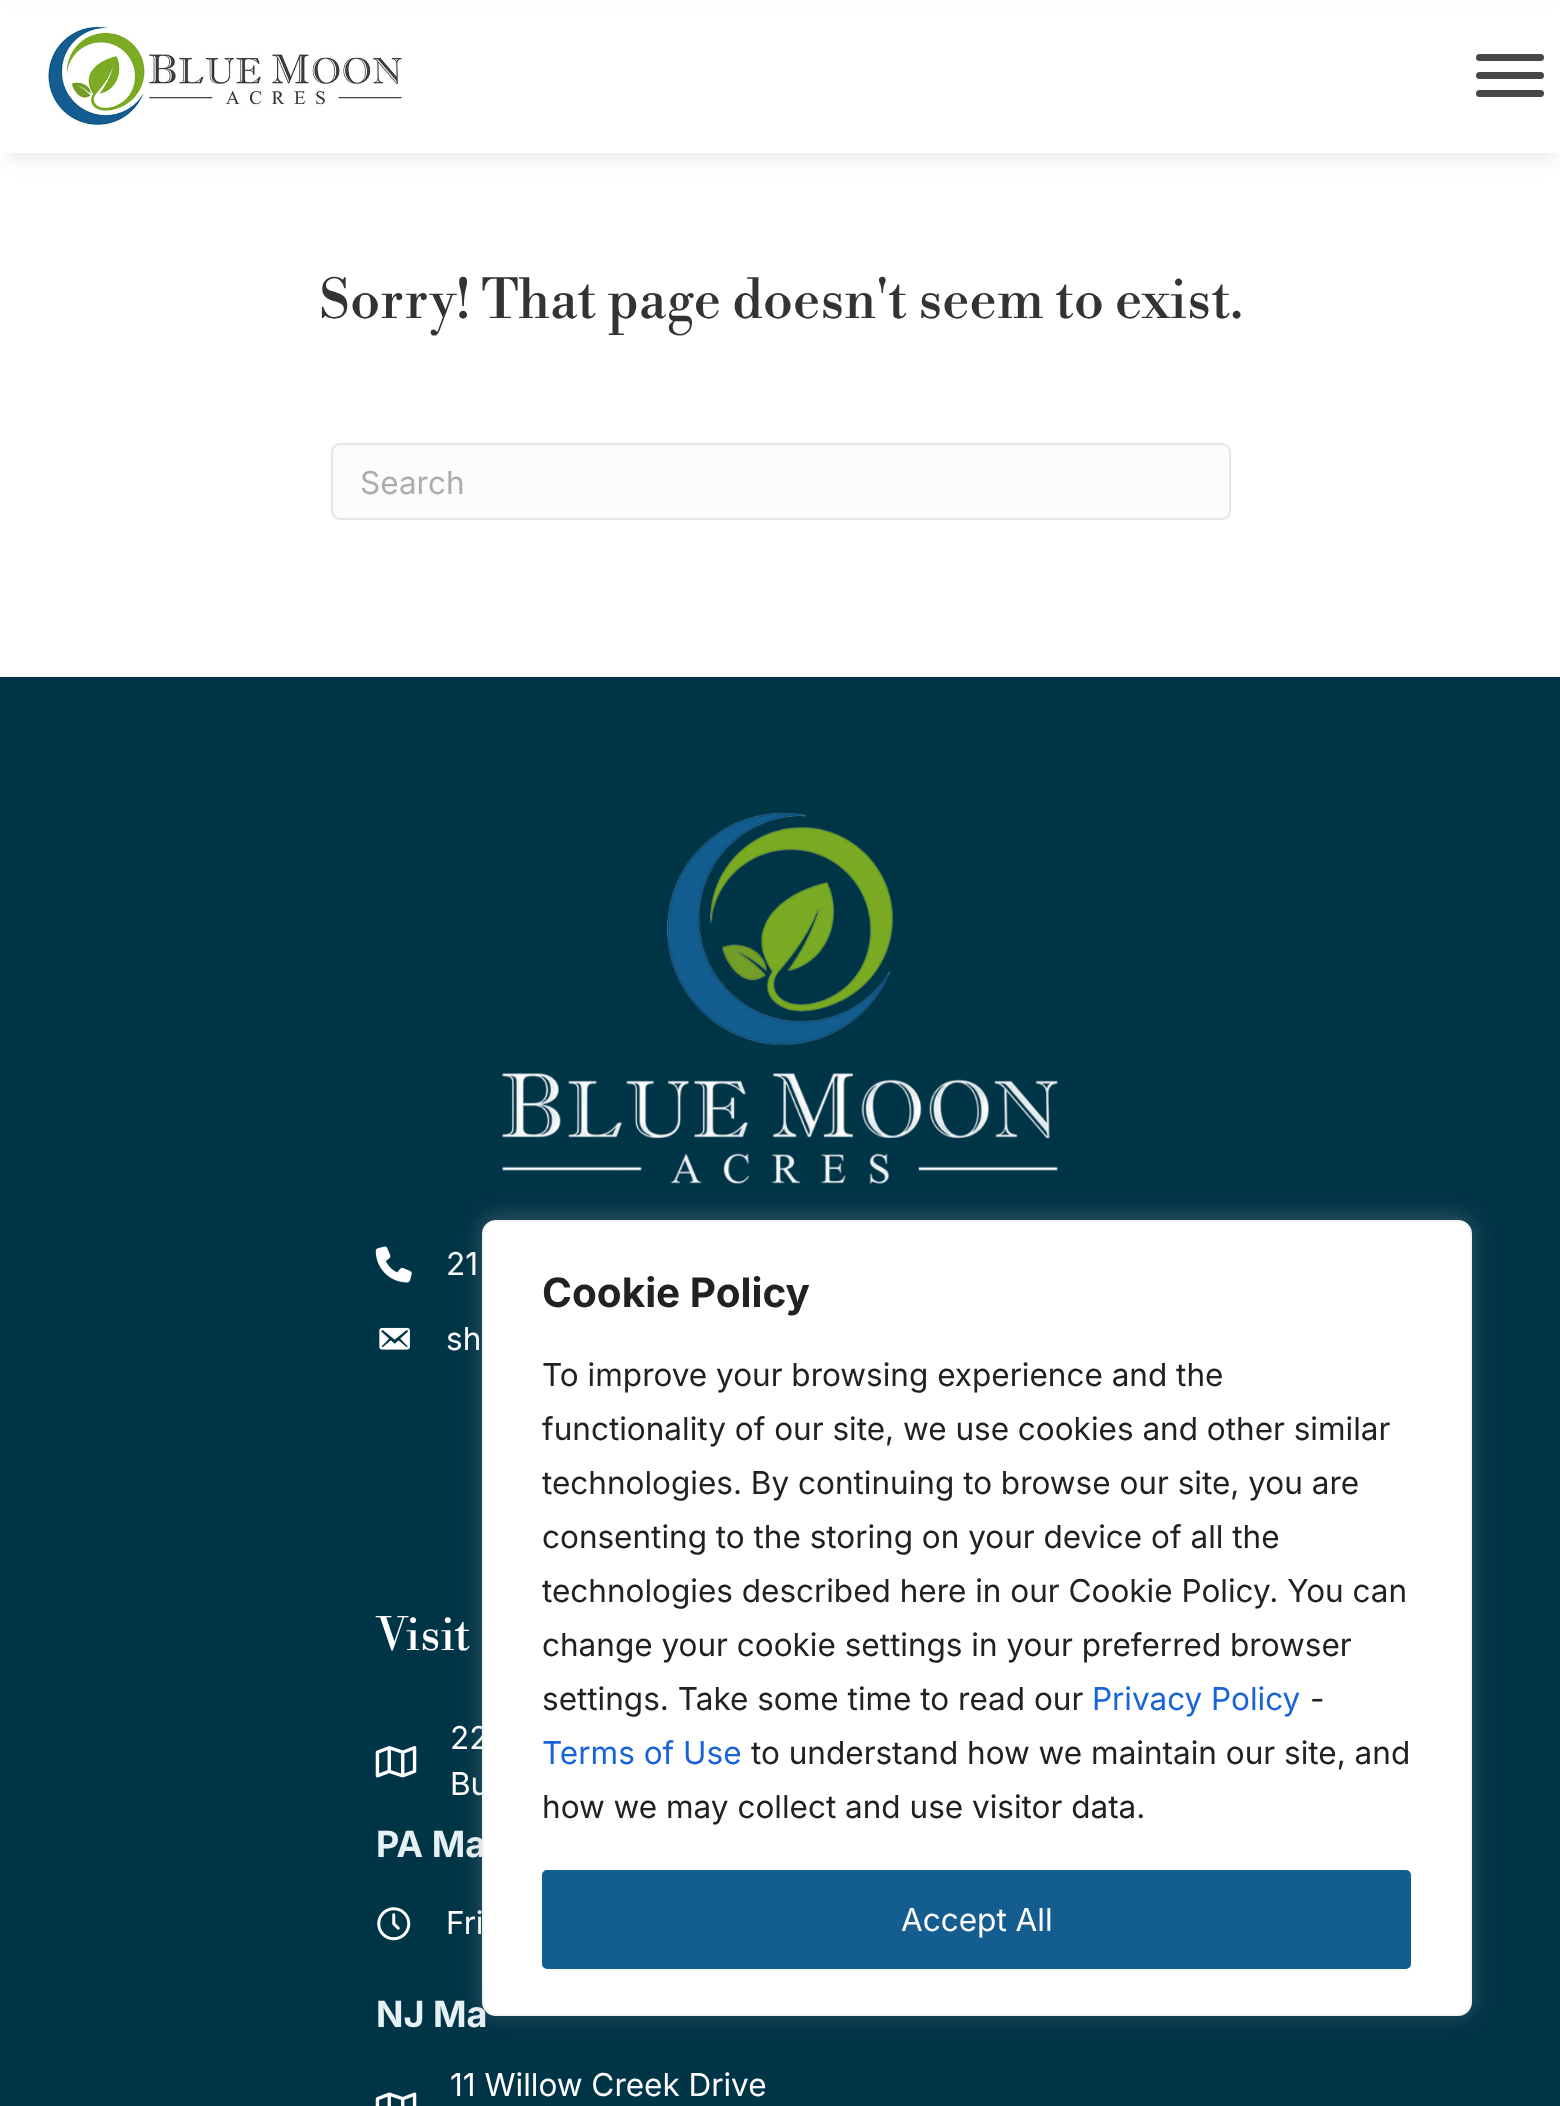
<svg xmlns="http://www.w3.org/2000/svg" width="1560" height="2106">
<rect width="100%" height="100%" fill="#fff"/>
<rect x="7" y="20" width="1548" height="140" fill="#02020214" filter="blur(10px)"/>
<rect y="9" width="1560" height="144" fill="#fff"/>
<image x="45" y="26" width="358" height="100" href="media/1.png"/>
<rect x="1476" y="72" width="68" height="7" rx="3.5" fill="#474747"/>
<rect x="1476" y="54" width="68" height="7" rx="3.5" fill="#474747"/>
<rect x="1476" y="90" width="68" height="7" rx="3.5" fill="#474747"/>
<text x="319" y="318" style="font-family:Libre Bodoni;font-size:54px;fill:#333">Sorry! That page doesn't seem to exist.</text>
<rect x="332" y="444" width="898" height="75" rx="8" fill="#fcfcfc" stroke="#e6e6e6" stroke-width="2"/>
<text x="360" y="494" style="font-family:Inter;font-size:31.5px;fill:#acacac">Search</text>
<rect y="677" width="1560" height="1429" fill="#003447"/>
<image x="502" y="812" width="556" height="372" href="media/2.png"/>
<image x="375" y="1246" width="37" height="37" href="media/3.png"/>
<text x="446" y="1275" style="font-family:Inter;font-size:31.5px;fill:#fff">21</text>
<image x="379" y="1327" width="31" height="23" href="media/4.png"/>
<text x="446" y="1350" style="font-family:Inter;font-size:31.5px;fill:#fff">sh</text>
<text x="376" y="1650" style="font-family:Libre Bodoni;font-size:45px;fill:#fff">Visit</text>
<image x="375" y="1746" width="42" height="32" href="media/5.png"/>
<text x="450" y="1749" style="font-family:Inter;font-size:31.5px;fill:#fff">22</text>
<text x="450" y="1795" style="font-family:Inter;font-size:31.5px;fill:#fff">Bu</text>
<text x="376" y="1857" style="font-family:Inter;font-size:36px;font-weight:bold;fill:#e6f1f4">PA Ma</text>
<image x="377" y="1907" width="34" height="34" href="media/6.png"/>
<text x="446" y="1934" style="font-family:Inter;font-size:31.5px;fill:#fff">Fri</text>
<text x="376" y="2027" style="font-family:Inter;font-size:36px;font-weight:bold;fill:#e6f1f4">NJ Ma</text>
<text x="450" y="2096" style="font-family:Inter;font-size:31.5px;fill:#fff">11 Willow Creek Drive</text>
<image x="375" y="2092" width="42" height="14" href="media/7.png"/>
<rect x="482" y="1217" width="990" height="797" rx="14" fill="#acabab4d" filter="blur(11px)"/>
<rect x="483" y="1221" width="988" height="794" rx="13" fill="#fff" stroke="#f4f4f4" stroke-width="2"/>
<text x="542" y="1307" style="font-family:Inter;font-size:40.5px;font-weight:bold;fill:#212121">Cookie Policy</text>
<text x="542" y="1386" style="font-family:Inter;font-size:31.5px;fill:#212121">To improve your browsing experience and the</text>
<text x="542" y="1440" style="font-family:Inter;font-size:31.5px;fill:#212121">functionality of our site, we use cookies and other similar</text>
<text x="542" y="1494" style="font-family:Inter;font-size:31.5px;fill:#212121">technologies. By continuing to browse our site, you are</text>
<text x="542" y="1548" style="font-family:Inter;font-size:31.5px;fill:#212121">consenting to the storing on your device of all the</text>
<text x="542" y="1602" style="font-family:Inter;font-size:31.5px;fill:#212121">technologies described here in our Cookie Policy. You can</text>
<text x="542" y="1656" style="font-family:Inter;font-size:31.5px;fill:#212121">change your cookie settings in your preferred browser</text>
<text x="542" y="1710" style="font-family:Inter;font-size:31.5px;fill:#212121">settings. Take some time to read our</text>
<text x="1092" y="1710" style="font-family:Inter;font-size:31.5px;fill:#1863dc">Privacy Policy</text>
<text x="1310" y="1710" style="font-family:Inter;font-size:31.5px;fill:#212121">-</text>
<text x="542" y="1764" style="font-family:Inter;font-size:31.5px;fill:#1863dc">Terms of Use</text>
<text x="751" y="1764" style="font-family:Inter;font-size:31.5px;fill:#212121">to understand how we maintain our site, and</text>
<text x="542" y="1818" style="font-family:Inter;font-size:31.5px;fill:#212121">how we may collect and use visitor data.</text>
<rect x="544.5" y="1872.5" width="864" height="94" rx="2.5" fill="#135d90" stroke="#135d90" stroke-width="5"/>
<text x="901" y="1931" style="font-family:Inter;font-size:31.5px;fill:#fff">Accept All</text>
</svg>
